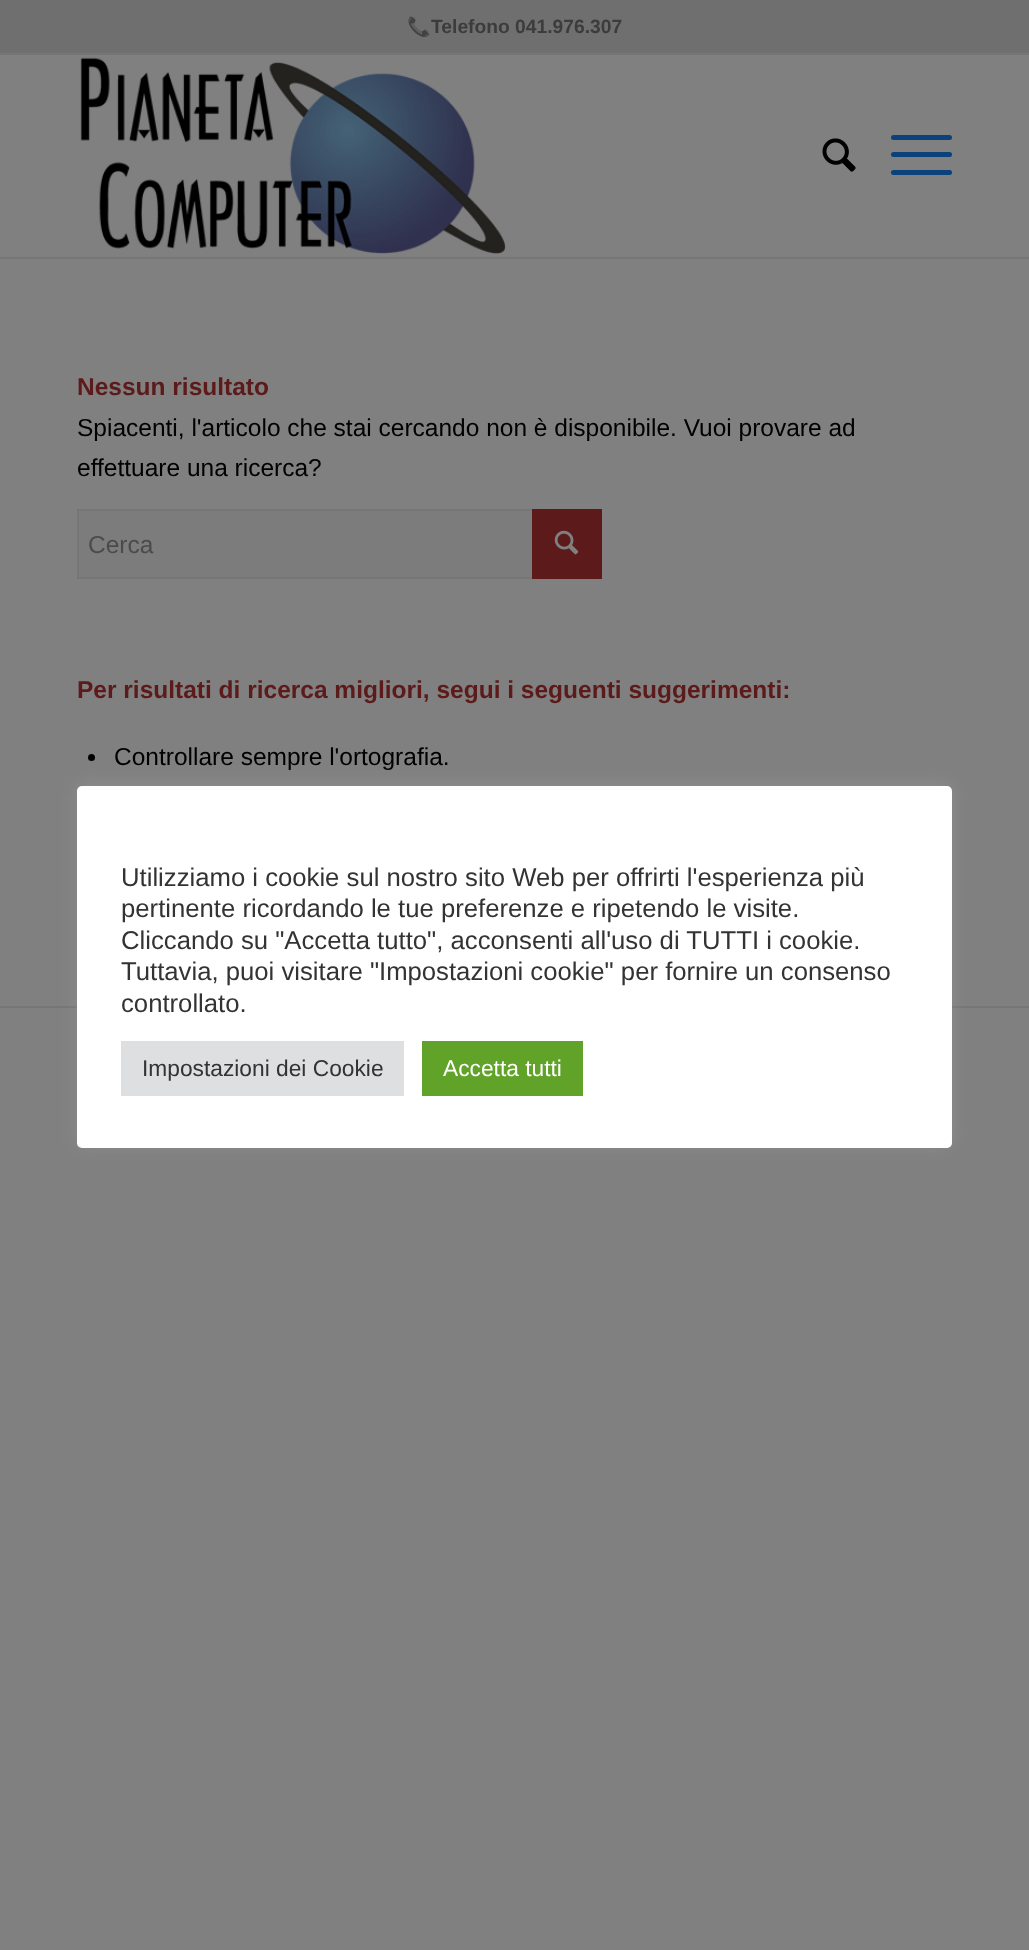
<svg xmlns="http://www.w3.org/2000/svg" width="1029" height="1950">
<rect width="100%" height="100%" fill="#808080"/>
<rect width="1029" height="53" fill="#6f6f6f"/>
<rect y="53" width="1029" height="2" fill="#767676"/>
<text x="407" y="33" style="font-family:Noto Color Emoji;font-size:19.25px;font-weight:bold;fill:#3c3c3c">📞</text>
<text x="431" y="33" style="font-family:Liberation Sans;font-size:19.25px;font-weight:bold;fill:#3c3c3c">Telefono 041.976.307</text>
<rect y="257" width="1029" height="2" fill="#767676"/>
<image x="80" y="57" width="426" height="197" href="media/1.png"/>
<image x="822" y="138" width="34" height="34" href="media/2.png"/>
<rect x="891" y="152" width="61" height="5" rx="2.5" fill="#0b427c"/>
<rect x="891" y="135" width="61" height="5" rx="2.5" fill="#0b427c"/>
<rect x="891" y="170" width="61" height="5" rx="2.5" fill="#0b427c"/>
<text x="77" y="395" style="font-family:Liberation Sans;font-size:24.5px;font-weight:bold;fill:#5c1a1a">Nessun risultato</text>
<text x="77" y="436" style="font-family:Liberation Sans;font-size:24.5px;fill:#000">Spiacenti, l'articolo che stai cercando non è disponibile. Vuoi provare ad</text>
<text x="77" y="476" style="font-family:Liberation Sans;font-size:24.5px;fill:#000">effettuare una ricerca?</text>
<rect x="79" y="511" width="453" height="66" fill="#7c7c7c"/>
<rect x="78" y="510" width="523" height="68" fill="none" stroke="#767676" stroke-width="2"/>
<text x="88" y="553" style="font-family:Liberation Sans;font-size:24.5px;fill:#4b4b4b">Cerca</text>
<rect x="532" y="509" width="70" height="70" fill="#5c1a1a"/>
<image x="554" y="530" width="25" height="25" href="media/3.png"/>
<text x="77" y="698" style="font-family:Liberation Sans;font-size:24.5px;font-weight:bold;fill:#5c1a1a">Per risultati di ricerca migliori, segui i seguenti suggerimenti:</text>
<circle cx="91.5" cy="757.5" r="3.5" fill="#000"/>
<text x="114" y="765" style="font-family:Liberation Sans;font-size:24.5px;fill:#000">Controllare sempre l'ortografia.</text>
<rect y="1006" width="1029" height="2" fill="#767676"/>
<rect x="77" y="784" width="875" height="362" rx="5" fill="#acabab4d" filter="blur(9px)"/>
<rect x="77" y="786" width="875" height="362" rx="5" fill="#fff"/>
<text x="121" y="886" style="font-family:Liberation Sans;font-size:25.7px;fill:#333">Utilizziamo i cookie sul nostro sito Web per offrirti l'esperienza più</text>
<text x="121" y="917" style="font-family:Liberation Sans;font-size:25.7px;fill:#333">pertinente ricordando le tue preferenze e ripetendo le visite.</text>
<text x="121" y="949" style="font-family:Liberation Sans;font-size:25.7px;fill:#333">Cliccando su "Accetta tutto", acconsenti all'uso di TUTTI i cookie.</text>
<text x="121" y="980" style="font-family:Liberation Sans;font-size:25.7px;fill:#333">Tuttavia, puoi visitare "Impostazioni cookie" per fornire un consenso</text>
<text x="121" y="1012" style="font-family:Liberation Sans;font-size:25.7px;fill:#333">controllato.</text>
<rect x="121" y="1041" width="283" height="55" fill="#dedfe0"/>
<text x="142" y="1076" style="font-family:Liberation Sans;font-size:22.75px;fill:#333">Impostazioni dei Cookie</text>
<rect x="422" y="1041" width="161" height="55" fill="#61a229"/>
<text x="443" y="1076" style="font-family:Liberation Sans;font-size:22.75px;fill:#fff">Accetta tutti</text>
</svg>
